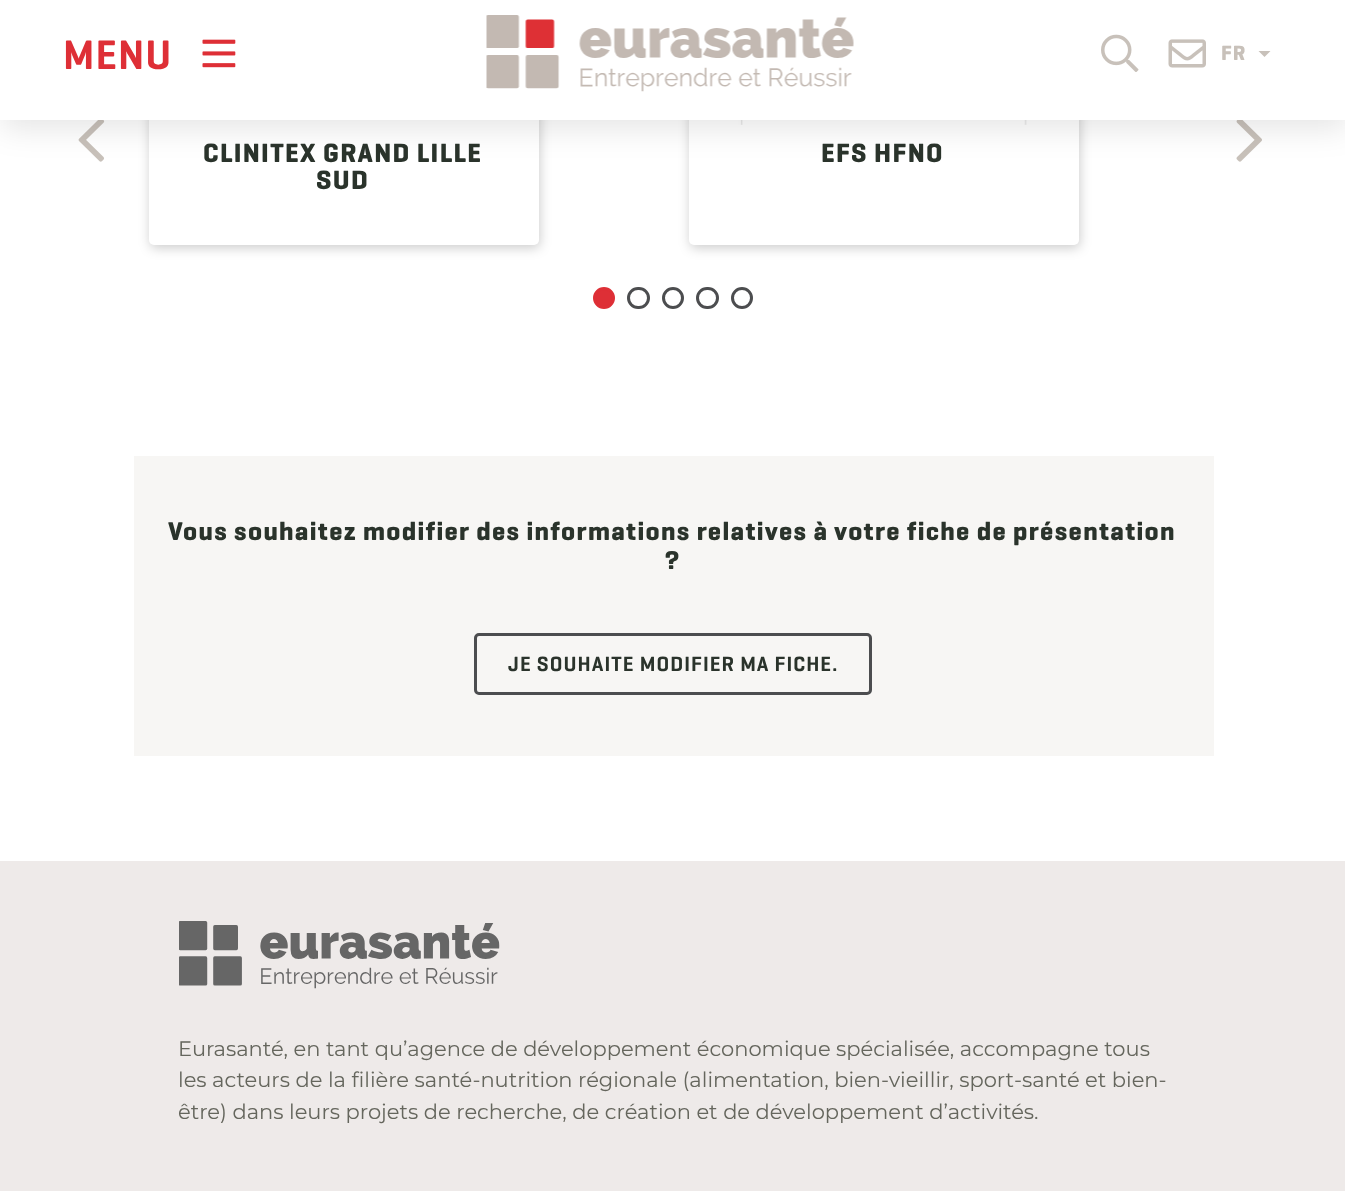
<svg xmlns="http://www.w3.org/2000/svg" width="1345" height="1191">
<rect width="100%" height="100%" fill="#fff"/>
<image x="78" y="120" width="27" height="42" href="media/5.png"/>
<rect x="150" y="-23" width="390" height="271" rx="5" fill="#00000033" filter="blur(6px)"/>
<rect x="149" y="-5" width="390" height="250" rx="5" fill="#fff"/>
<rect x="690" y="-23" width="390" height="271" rx="5" fill="#00000033" filter="blur(6px)"/>
<rect x="689" y="-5" width="390" height="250" rx="5" fill="#fff"/>
<image x="718" y="120" width="331" height="5" href="media/6.png"/>
<image x="1236" y="120" width="26" height="42" href="media/7.png"/>
<rect x="2" y="9" width="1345" height="120" fill="#0000001a" filter="blur(15px)"/>
<rect width="1345" height="120" fill="#fff"/>
<text x="63" y="69" style="font-family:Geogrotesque;font-size:42px;font-weight:600;letter-spacing:1.05px;fill:#de2f36">MENU</text>
<image x="202" y="39" width="34" height="29" href="media/1.png"/>
<image x="486" y="15" width="368" height="77" href="media/2.png"/>
<image x="1101" y="34" width="38" height="38" href="media/3.png"/>
<image x="1168" y="39" width="38" height="29" href="media/4.png"/>
<text x="1221" y="60" style="font-family:Geogrotesque;font-size:21px;font-weight:bold;letter-spacing:1.05px;fill:#c8c1ba">FR</text>
<path d="M1258.5 51h12l-6 6z" fill="#c8c1ba"/>
<text x="203" y="162" style="font-family:Geogrotesque;font-size:27px;font-weight:bold;letter-spacing:1.35px;fill:#2a332b">CLINITEX GRAND LILLE</text>
<text x="316" y="189" style="font-family:Geogrotesque;font-size:27px;font-weight:bold;letter-spacing:1.35px;fill:#2a332b">SUD</text>
<text x="821" y="162" style="font-family:Geogrotesque;font-size:27px;font-weight:bold;letter-spacing:1.35px;fill:#2a332b">EFS HFNO</text>
<circle cx="604" cy="298" r="9.5" fill="#de2f36" stroke="#de2f36" stroke-width="3"/>
<rect x="628.5" y="288.5" width="20" height="19" rx="9.5" fill="none" stroke="#4c4d4f" stroke-width="3"/>
<circle cx="673" cy="298" r="9.5" fill="none" stroke="#4c4d4f" stroke-width="3"/>
<rect x="697.5" y="288.5" width="20" height="19" rx="9.5" fill="none" stroke="#4c4d4f" stroke-width="3"/>
<circle cx="742" cy="298" r="9.5" fill="none" stroke="#4c4d4f" stroke-width="3"/>
<rect x="134" y="456" width="1080" height="300" fill="#f7f6f4"/>
<text x="168" y="540" style="font-family:Geogrotesque;font-size:26.25px;font-weight:bold;letter-spacing:1.3px;fill:#2a332b">Vous souhaitez modifier des informations relatives à votre fiche de présentation</text>
<text x="665" y="569" style="font-family:Geogrotesque;font-size:26.25px;font-weight:bold;letter-spacing:1.3px;fill:#2a332b">?</text>
<rect x="475.5" y="634.5" width="395" height="59" rx="3.5" fill="none" stroke="#4c4d4f" stroke-width="3"/>
<text x="508" y="671" style="font-family:Geogrotesque;font-size:21px;font-weight:600;letter-spacing:1.05px;fill:#2a332b">JE SOUHAITE MODIFIER MA FICHE.</text>
<rect y="861" width="1345" height="330" fill="#eeeae9"/>
<image x="179" y="921" width="321" height="68" href="media/8.png"/>
<text x="178" y="1056" style="font-family:Montserrat;font-size:21px;fill:#65665d">Eurasanté, en tant qu’agence de développement économique spécialisée, accompagne tous</text>
<text x="178" y="1087" style="font-family:Montserrat;font-size:21px;fill:#65665d">les acteurs de la filière santé-nutrition régionale (alimentation, bien-vieillir, sport-santé et bien-</text>
<text x="178" y="1119" style="font-family:Montserrat;font-size:21px;fill:#65665d">être) dans leurs projets de recherche, de création et de développement d’activités.</text>
</svg>
